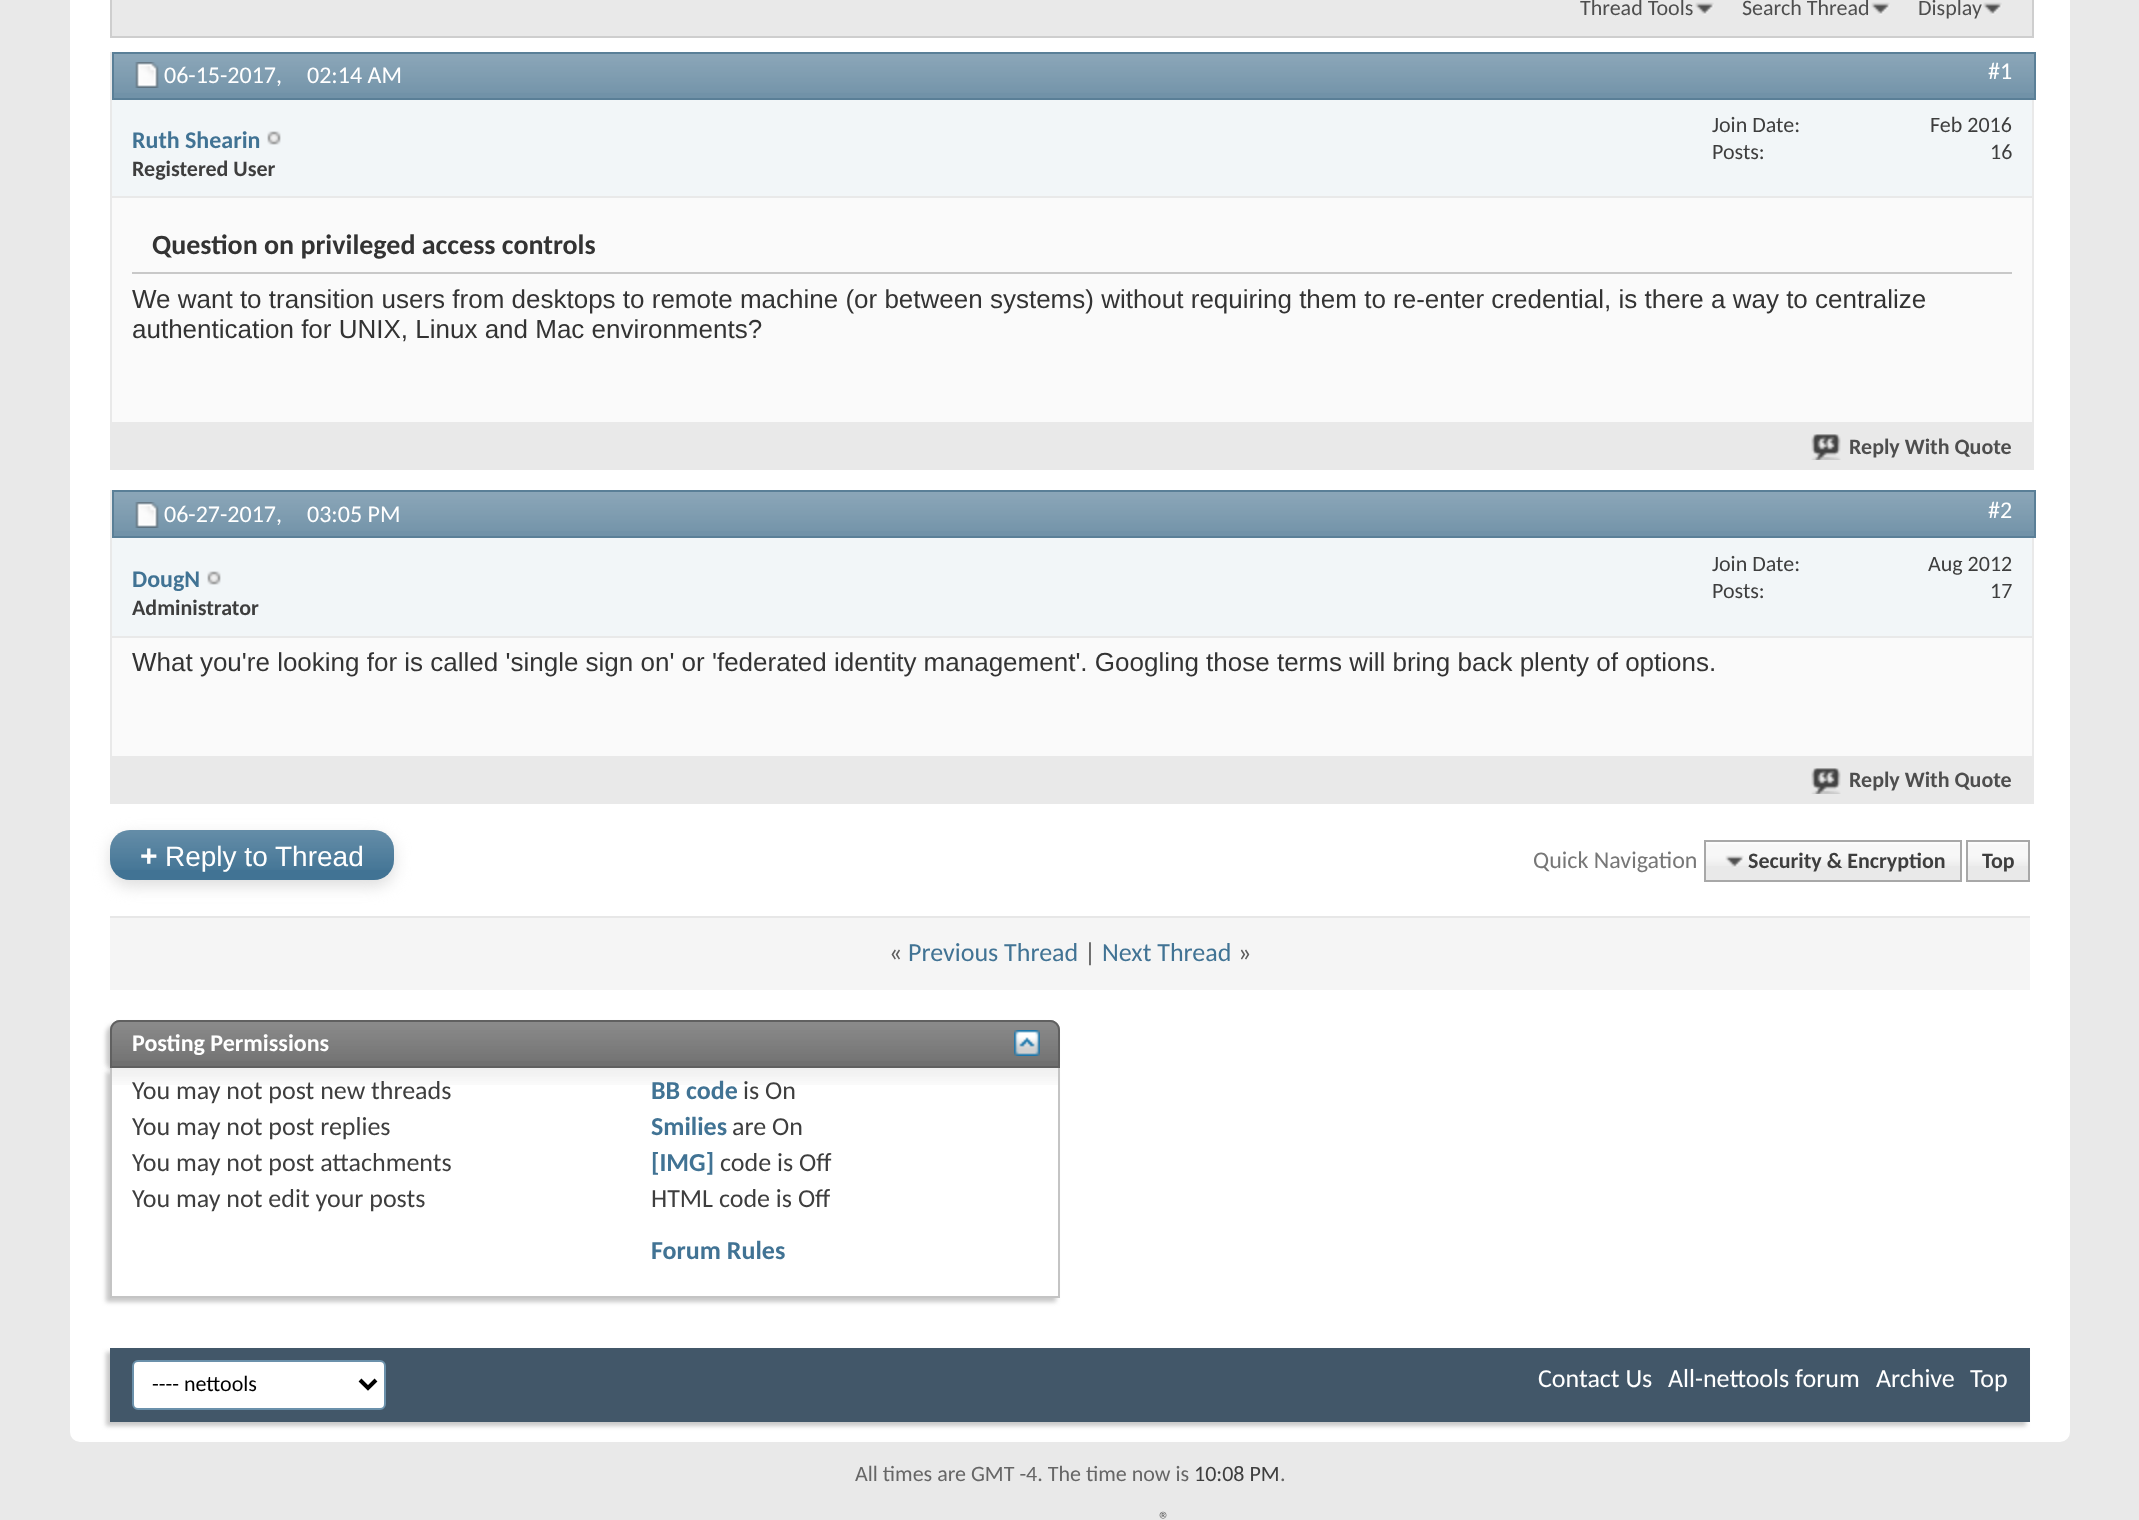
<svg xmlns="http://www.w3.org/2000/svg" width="2139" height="1520">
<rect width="100%" height="100%" fill="#e9e9e9"/>
<rect x="70" y="-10" width="2000" height="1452" rx="10" fill="#fff"/>
<rect x="111" y="-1" width="1922" height="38" fill="#e9e9e9" stroke="#cecece" stroke-width="2"/>
<image x="1695" y="2" width="19" height="13" href="media/1.png"/>
<text x="1580" y="15" style="font-family:Carlito;font-size:22px;fill:#4e4e4e">Thread Tools</text>
<image x="1871" y="2" width="19" height="13" href="media/1.png"/>
<text x="1742" y="15" style="font-family:Carlito;font-size:22px;fill:#4e4e4e">Search Thread</text>
<image x="1983" y="2" width="19" height="13" href="media/1.png"/>
<text x="1918" y="15" style="font-family:Carlito;font-size:22px;fill:#4e4e4e">Display</text>
<rect x="111" y="53" width="1922" height="416" fill="none" stroke="#e9e9e9" stroke-width="2"/>
<rect x="114" y="54" width="1920" height="44" fill="#7192a8"/>
<image x="114" y="54" width="1920" height="39" href="media/2.png"/>
<rect x="113" y="53" width="1922" height="46" fill="none" stroke="#5a7f97" stroke-width="2"/>
<image x="135" y="62" width="24" height="26" href="media/3.png"/>
<text x="164" y="83" style="font-family:Carlito;font-size:24px;fill:#fff">06-15-2017,</text>
<text x="307" y="83" style="font-family:Carlito;font-size:24px;fill:#fff">02:14 AM</text>
<text x="1988" y="79" style="font-family:Carlito;font-size:24px;fill:#fff">#1</text>
<rect x="112" y="100" width="1920" height="96" fill="#f2f6f8"/>
<rect x="112" y="196" width="1920" height="2" fill="#e9e9e9"/>
<text x="132" y="148" style="font-family:Carlito;font-size:24px;font-weight:bold;fill:#417394">Ruth Shearin</text>
<image x="267" y="131" width="14" height="14" href="media/4.png"/>
<text x="132" y="176" style="font-family:Carlito;font-size:22px;font-weight:bold;fill:#3e3e3e">Registered User</text>
<text x="1712" y="132" style="font-family:Carlito;font-size:22px;fill:#3e3e3e">Join Date:</text>
<text x="1930" y="132" style="font-family:Carlito;font-size:22px;fill:#3e3e3e">Feb 2016</text>
<text x="1712" y="159" style="font-family:Carlito;font-size:22px;fill:#3e3e3e">Posts:</text>
<text x="1990" y="159" style="font-family:Carlito;font-size:22px;fill:#3e3e3e">16</text>
<rect x="112" y="198" width="1920" height="224" fill="#fafafa"/>
<rect x="132" y="272" width="1880" height="2" fill="#c8c8c8"/>
<text x="152" y="254" style="font-family:Carlito;font-size:28px;font-weight:bold;fill:#333">Question on privileged access controls</text>
<text x="132" y="308" style="font-family:Liberation Sans;font-size:26px;fill:#333">We want to transition users from desktops to remote machine (or between systems) without requiring them to re-enter credential, is there a way to centralize</text>
<text x="132" y="338" style="font-family:Liberation Sans;font-size:26px;fill:#333">authentication for UNIX, Linux and Mac environments?</text>
<rect x="112" y="422" width="1920" height="46" fill="#e9e9e9"/>
<image x="1811" y="434" width="30" height="26" href="media/5.png"/>
<text x="1849" y="454" style="font-family:Carlito;font-size:22px;font-weight:bold;fill:#4e4e4e">Reply With Quote</text>
<rect x="111" y="491" width="1922" height="312" fill="none" stroke="#e9e9e9" stroke-width="2"/>
<rect x="114" y="492" width="1920" height="44" fill="#7192a8"/>
<image x="114" y="492" width="1920" height="39" href="media/2.png"/>
<rect x="113" y="491" width="1922" height="46" fill="none" stroke="#5a7f97" stroke-width="2"/>
<image x="135" y="502" width="24" height="26" href="media/6.png"/>
<text x="164" y="522" style="font-family:Carlito;font-size:24px;fill:#fff">06-27-2017,</text>
<text x="307" y="522" style="font-family:Carlito;font-size:24px;fill:#fff">03:05 PM</text>
<text x="1988" y="518" style="font-family:Carlito;font-size:24px;fill:#fff">#2</text>
<rect x="112" y="538" width="1920" height="98" fill="#f2f6f8"/>
<rect x="112" y="636" width="1920" height="2" fill="#e9e9e9"/>
<text x="132" y="587" style="font-family:Carlito;font-size:24px;font-weight:bold;fill:#417394">DougN</text>
<image x="207" y="571" width="14" height="14" href="media/4.png"/>
<text x="132" y="615" style="font-family:Carlito;font-size:22px;font-weight:bold;fill:#3e3e3e">Administrator</text>
<text x="1712" y="571" style="font-family:Carlito;font-size:22px;fill:#3e3e3e">Join Date:</text>
<text x="1928" y="571" style="font-family:Carlito;font-size:22px;fill:#3e3e3e">Aug 2012</text>
<text x="1712" y="598" style="font-family:Carlito;font-size:22px;fill:#3e3e3e">Posts:</text>
<text x="1990" y="598" style="font-family:Carlito;font-size:22px;fill:#3e3e3e">17</text>
<rect x="112" y="638" width="1920" height="118" fill="#fafafa"/>
<text x="132" y="671" style="font-family:Liberation Sans;font-size:26px;fill:#333">What you're looking for is called 'single sign on' or 'federated identity management'. Googling those terms will bring back plenty of options.</text>
<rect x="112" y="756" width="1920" height="46" fill="#e9e9e9"/>
<image x="1811" y="768" width="30" height="26" href="media/5.png"/>
<text x="1849" y="787" style="font-family:Carlito;font-size:22px;font-weight:bold;fill:#4e4e4e">Reply With Quote</text>
<rect x="110" y="836" width="284" height="50" rx="20" fill="#ddd" filter="blur(8px)"/>
<rect x="110" y="830" width="284" height="50" rx="20" fill="#417394"/>
<image x="110" y="830" width="284" height="40" href="media/7.png"/>
<text x="140" y="866" style="font-family:Liberation Sans;font-size:30px;font-weight:bold;fill:#fff">+</text>
<text x="165" y="866" style="font-family:Liberation Sans;font-size:28px;fill:#fff">Reply to Thread</text>
<text x="1533" y="868" style="font-family:Carlito;font-size:24px;fill:#777">Quick Navigation</text>
<rect x="1706" y="842" width="254" height="38" fill="#e9e9e9"/>
<image x="1706" y="842" width="254" height="24" href="media/8.png"/>
<rect x="1968" y="842" width="60" height="38" fill="#e9e9e9"/>
<image x="1968" y="842" width="60" height="24" href="media/9.png"/>
<rect x="1705" y="841" width="256" height="40" fill="none" stroke="#a8a8a8" stroke-width="2"/>
<image x="1725" y="855" width="19" height="13" href="media/10.png"/>
<text x="1748" y="868" style="font-family:Carlito;font-size:22px;font-weight:bold;fill:#3e3e3e">Security &amp; Encryption</text>
<rect x="1967" y="841" width="62" height="40" fill="none" stroke="#a8a8a8" stroke-width="2"/>
<text x="1982" y="868" style="font-family:Carlito;font-size:22px;font-weight:bold;fill:#3e3e3e">Top</text>
<rect x="110" y="918" width="1920" height="72" fill="#f5f5f5"/>
<rect x="110" y="916" width="1920" height="2" fill="#e7e7e7"/>
<text x="889" y="961" style="font-family:Carlito;font-size:26px;fill:#5d5d5d">«</text>
<text x="908" y="961" style="font-family:Carlito;font-size:26px;fill:#417394">Previous Thread</text>
<text x="1084" y="961" style="font-family:Carlito;font-size:26px;fill:#5d5d5d">|</text>
<text x="1102" y="961" style="font-family:Carlito;font-size:26px;fill:#417394">Next Thread</text>
<text x="1238" y="961" style="font-family:Carlito;font-size:26px;fill:#5d5d5d">»</text>
<rect x="106" y="1024" width="950" height="48" rx="10" fill="#c8c8c8" filter="blur(2px)"/>
<path d="M120 1020h930c5.5 0 10 4.5 10 10v38h-950v-38c0-5.5 4.5-10 10-10z" fill="#707070"/>
<image x="110" y="1022" width="950" height="39" href="media/11.png"/>
<path d="M120 1021h930c5 0 9 4 9 9v37h-948v-37c0-5 4-9 9-9z" fill="none" stroke="#606060" stroke-width="2"/>
<text x="132" y="1051" style="font-family:Carlito;font-size:24px;font-weight:bold;fill:#fff">Posting Permissions</text>
<image x="1014" y="1030" width="26" height="26" href="media/12.png"/>
<rect x="106" y="1072" width="950" height="230" fill="#c8c8c8" filter="blur(2px)"/>
<rect x="112" y="1068" width="946" height="228" fill="#fff"/>
<image x="112" y="1068" width="946" height="17" href="media/13.png"/>
<rect x="1058" y="1068" width="2" height="230" fill="#c4c4c4"/>
<rect x="110" y="1296" width="950" height="2" fill="#c4c4c4"/>
<rect x="110" y="1068" width="2" height="230" fill="#c4c4c4"/>
<text x="132" y="1099" style="font-family:Carlito;font-size:26px;fill:#3e3e3e">You may not post new threads</text>
<text x="132" y="1135" style="font-family:Carlito;font-size:26px;fill:#3e3e3e">You may not post replies</text>
<text x="132" y="1171" style="font-family:Carlito;font-size:26px;fill:#3e3e3e">You may not post attachments</text>
<text x="132" y="1207" style="font-family:Carlito;font-size:26px;fill:#3e3e3e">You may not edit your posts</text>
<text x="651" y="1099" style="font-family:Carlito;font-size:26px;font-weight:bold;fill:#417394">BB code</text>
<text x="743" y="1099" style="font-family:Carlito;font-size:26px;fill:#3e3e3e">is On</text>
<text x="651" y="1135" style="font-family:Carlito;font-size:26px;font-weight:bold;fill:#417394">Smilies</text>
<text x="732" y="1135" style="font-family:Carlito;font-size:26px;fill:#3e3e3e">are On</text>
<text x="651" y="1171" style="font-family:Carlito;font-size:26px;font-weight:bold;fill:#417394">[IMG]</text>
<text x="720" y="1171" style="font-family:Carlito;font-size:26px;fill:#3e3e3e">code is Off</text>
<text x="651" y="1207" style="font-family:Carlito;font-size:26px;fill:#3e3e3e">HTML code is Off</text>
<text x="651" y="1259" style="font-family:Carlito;font-size:26px;font-weight:bold;fill:#417394">Forum Rules</text>
<rect x="106" y="1352" width="1920" height="74" fill="#c8c8c8" filter="blur(2px)"/>
<rect x="110" y="1348" width="1920" height="74" fill="#425769"/>
<rect x="133" y="1361" width="252" height="48" rx="5" fill="#fff" stroke="#6b91ab" stroke-width="2"/>
<path d="M360 1380l8 8l8-8" fill="none" stroke="#000" stroke-width="4"/>
<text x="152" y="1391" style="font-family:Carlito;font-size:22px;fill:#000">---- nettools</text>
<text x="1538" y="1387" style="font-family:Carlito;font-size:26px;fill:#fff">Contact Us</text>
<text x="1668" y="1387" style="font-family:Carlito;font-size:26px;fill:#fff">All-nettools forum</text>
<text x="1876" y="1387" style="font-family:Carlito;font-size:26px;fill:#fff">Archive</text>
<text x="1970" y="1387" style="font-family:Carlito;font-size:26px;fill:#fff">Top</text>
<text x="855" y="1481" style="font-family:Carlito;font-size:22px;fill:#666">All times are GMT -4. The time now is</text>
<text x="1194" y="1481" style="font-family:Carlito;font-size:22px;fill:#3e3e3e">10:08 PM</text>
<text x="1280" y="1481" style="font-family:Carlito;font-size:22px;fill:#666">.</text>
<text x="1159" y="1527" style="font-family:Carlito;font-size:22px;fill:#666">®</text>
</svg>
